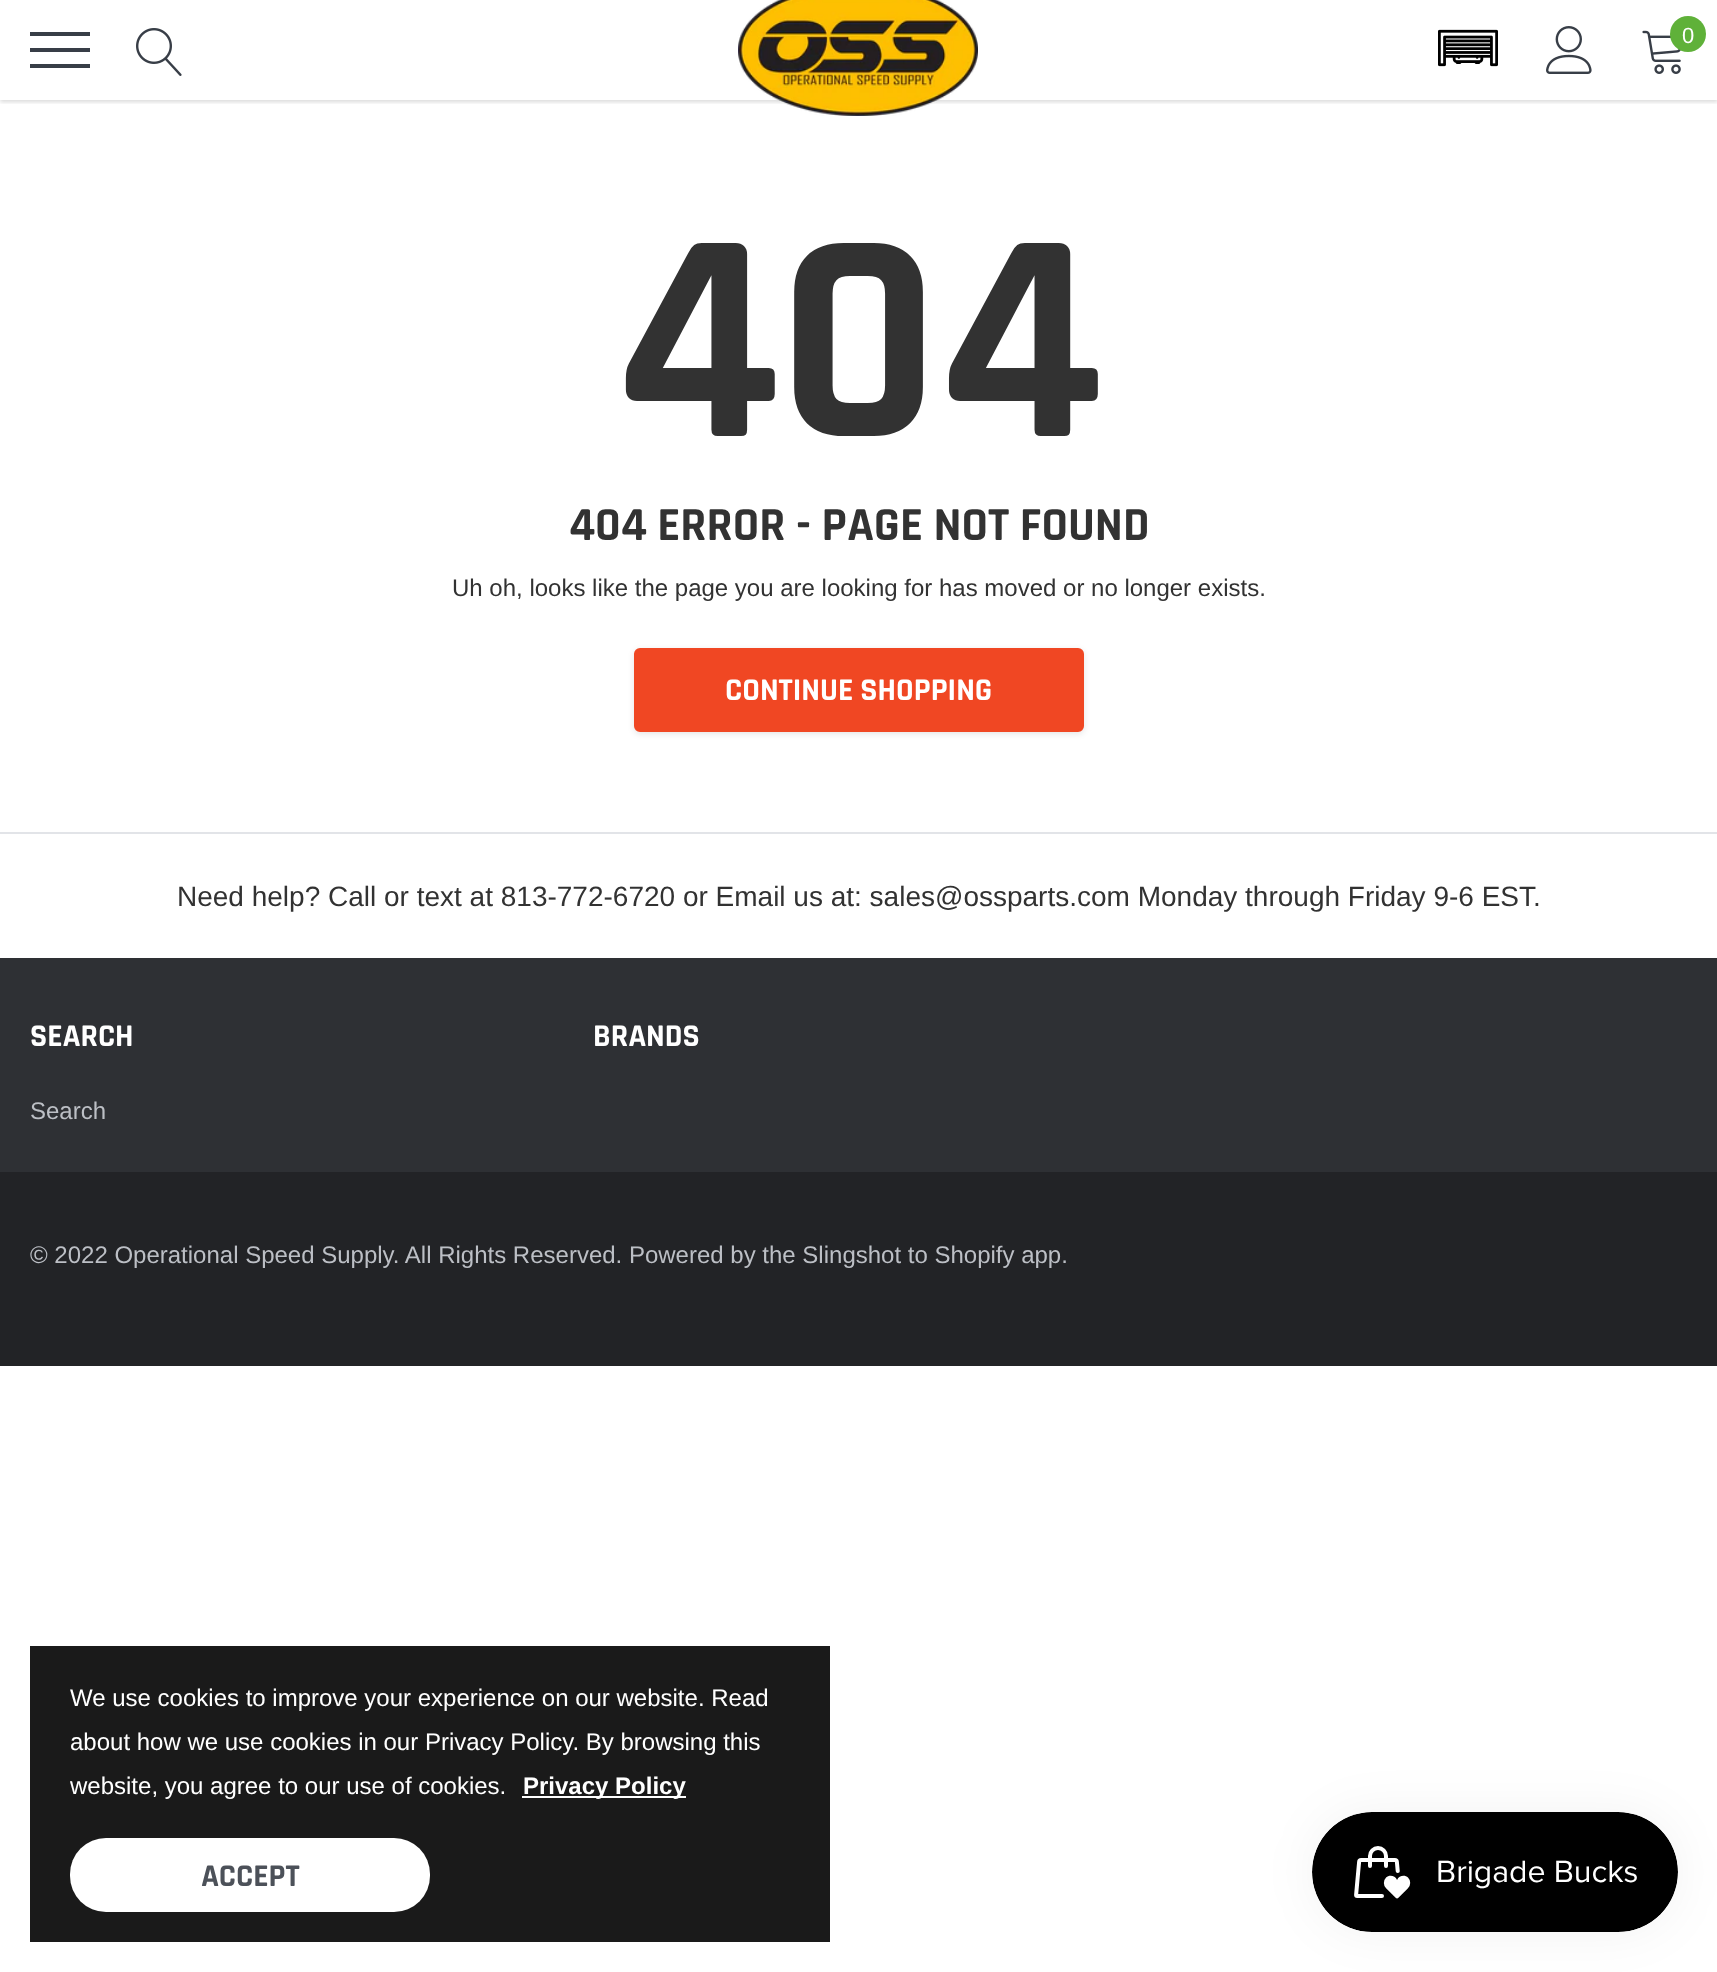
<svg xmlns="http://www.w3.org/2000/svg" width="1717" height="1972">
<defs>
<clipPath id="clip1"><rect x="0" y="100" width="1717" height="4"/></clipPath>
</defs>
<rect width="100%" height="100%" fill="#fff"/>
<g clip-path="url(#clip1)">
<rect y="2" width="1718" height="100" fill="#00000026" filter="blur(2px)"/>
</g>
<rect x="30" y="48" width="60" height="4" fill="#383e47"/>
<rect x="30" y="32" width="60" height="4" fill="#383e47"/>
<rect x="30" y="64" width="60" height="4" fill="#383e47"/>
<image x="136" y="28" width="46" height="48" href="media/1.png"/>
<image x="738" y="0" width="240" height="116" href="media/2.png"/>
<image x="1438" y="29" width="60" height="38" href="media/3.png"/>
<image x="1546" y="26" width="46" height="48" href="media/4.png"/>
<image x="1642" y="30" width="39" height="44" href="media/5.png"/>
<circle cx="1688" cy="34" r="18" fill="#5fb139"/>
<text x="1682" y="43" style="font-family:Arimo;font-size:22px;fill:#fff">0</text>
<text x="616" y="436" style="font-family:Rajdhani;font-size:300px;font-weight:bold;fill:#323232">404</text>
<text x="569" y="540" style="font-family:Rajdhani;font-size:48px;font-weight:bold;fill:#323232">404 ERROR - PAGE NOT FOUND</text>
<text x="452" y="596" style="font-family:Arimo;font-size:24px;fill:#323232">Uh oh, looks like the page you are looking for has moved or no longer exists.</text>
<rect x="634" y="650" width="450" height="84" rx="6" fill="#0000001a" filter="blur(3px)"/>
<rect x="635" y="649" width="448" height="82" rx="5" fill="#f04723" stroke="#f04723" stroke-width="2"/>
<text x="725" y="700" style="font-family:Rajdhani;font-size:32px;font-weight:bold;fill:#fff">CONTINUE SHOPPING</text>
<rect y="832" width="1717" height="2" fill="#e2e4e8"/>
<text x="177" y="906" style="font-family:Arimo;font-size:28px;fill:#323232">Need help? Call or text at 813-772-6720 or Email us at: sales@ossparts.com Monday through Friday 9-6 EST.</text>
<rect y="958" width="1717" height="214" fill="#2e3034"/>
<text x="30" y="1046" style="font-family:Rajdhani;font-size:32px;font-weight:bold;fill:#fff">SEARCH</text>
<text x="30" y="1119" style="font-family:Arimo;font-size:24px;fill:#bcbfc5">Search</text>
<text x="593" y="1046" style="font-family:Rajdhani;font-size:32px;font-weight:bold;fill:#fff">BRANDS</text>
<rect y="1172" width="1717" height="194" fill="#222326"/>
<text x="30" y="1263" style="font-family:Arimo;font-size:24px;fill:#bcbfc5">© 2022 Operational Speed Supply. All Rights Reserved. Powered by the Slingshot to Shopify app.</text>
<rect x="30" y="1646" width="800" height="296" fill="#1a1a1a"/>
<text x="70" y="1706" style="font-family:Arimo;font-size:24px;fill:#fff">We use cookies to improve your experience on our website. Read</text>
<text x="70" y="1750" style="font-family:Arimo;font-size:24px;fill:#fff">about how we use cookies in our Privacy Policy. By browsing this</text>
<text x="70" y="1794" style="font-family:Arimo;font-size:24px;fill:#fff">website, you agree to our use of cookies.</text>
<rect x="522" y="1796" width="164" height="2" fill="#fff"/>
<text x="523" y="1794" style="font-family:Arimo;font-size:24px;font-weight:bold;fill:#fff">Privacy Policy</text>
<rect x="70" y="1838" width="360" height="74" rx="36" fill="#fff"/>
<text x="201" y="1886" style="font-family:Rajdhani;font-size:32px;font-weight:bold;fill:#4c5159">ACCEPT</text>
<rect x="1312" y="1812" width="366" height="120" rx="60" fill="#0000000d" filter="blur(25px)"/>
<image x="1312" y="1812" width="366" height="120" href="media/6.png"/>
</svg>
